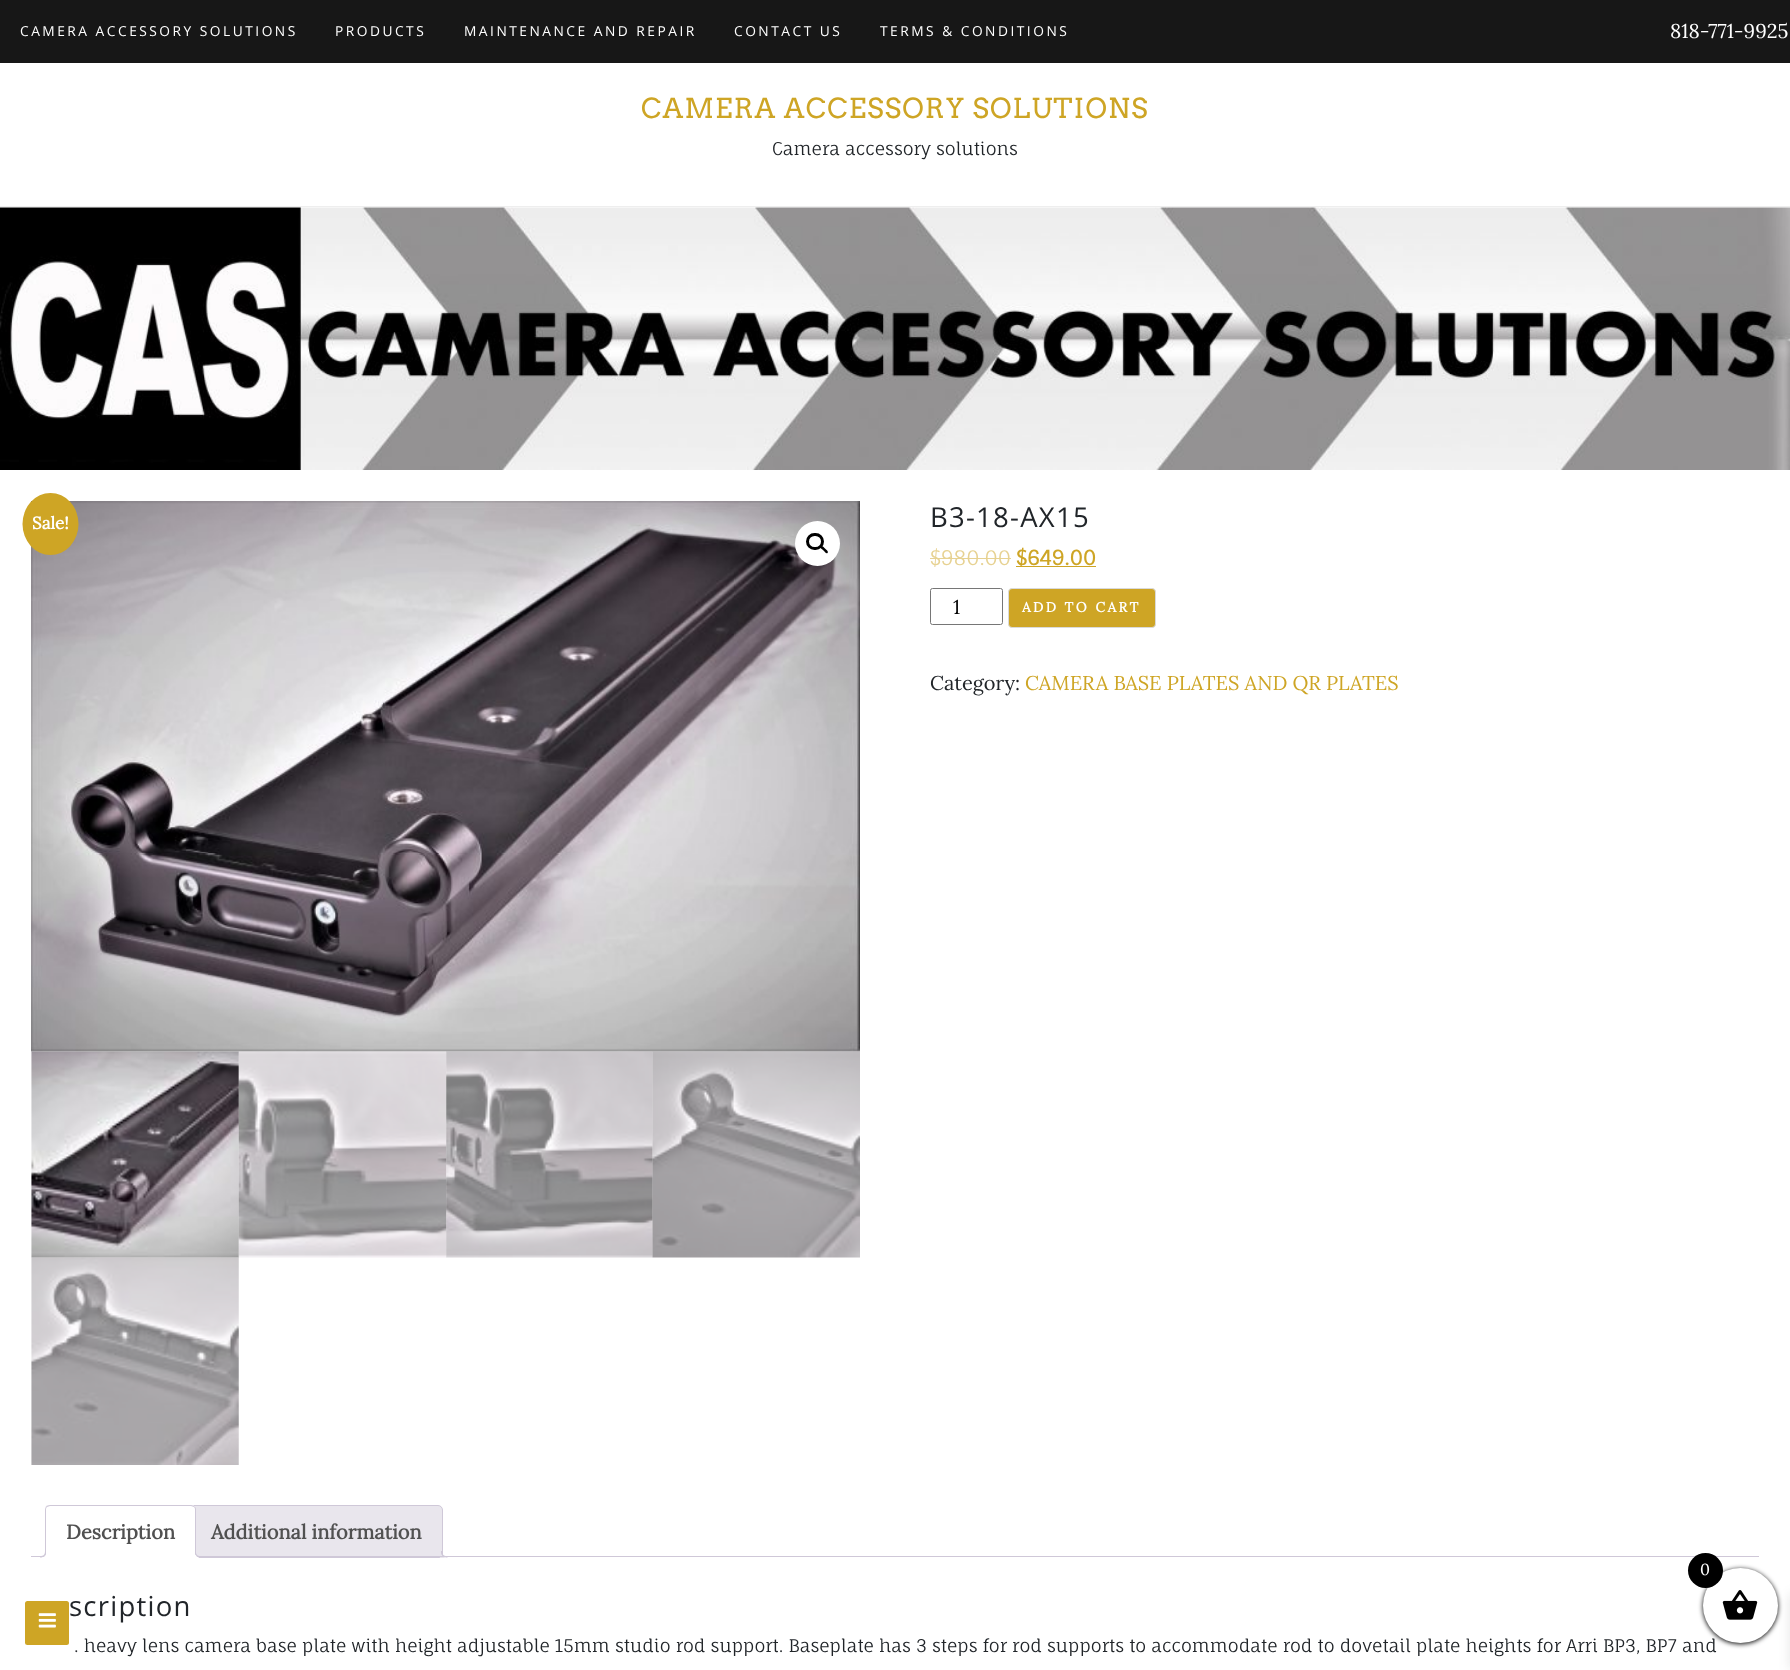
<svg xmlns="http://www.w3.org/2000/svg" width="1790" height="1670">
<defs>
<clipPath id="clip1"><rect x="31" y="1505" width="1728" height="53"/></clipPath>
</defs>
<rect width="100%" height="100%" fill="#fff"/>
<rect width="1790" height="63" fill="#171717"/>
<text x="20" y="36" style="font-family:Open Sans;font-size:13.75px;letter-spacing:2.5px;fill:#fff">CAMERA ACCESSORY SOLUTIONS</text>
<text x="335" y="36" style="font-family:Open Sans;font-size:13.75px;letter-spacing:2.5px;fill:#fff">PRODUCTS</text>
<text x="464" y="36" style="font-family:Open Sans;font-size:13.75px;letter-spacing:2.5px;fill:#fff">MAINTENANCE AND REPAIR</text>
<text x="734" y="36" style="font-family:Open Sans;font-size:13.75px;letter-spacing:2.5px;fill:#fff">CONTACT US</text>
<text x="880" y="36" style="font-family:Open Sans;font-size:13.75px;letter-spacing:2.5px;fill:#fff">TERMS &amp; CONDITIONS</text>
<text x="1670" y="38" style="font-family:Lora;font-size:20px;fill:#fff">818-771-9925</text>
<rect y="206" width="1790" height="1" fill="#eee"/>
<text x="641" y="118" style="font-family:Arvo;font-size:27.5px;letter-spacing:1.25px;fill:#cea525">CAMERA ACCESSORY SOLUTIONS</text>
<text x="772" y="155" style="font-family:Fauna One;font-size:17.5px;fill:#212529">Camera accessory solutions</text>
<image x="0" y="207" width="1790" height="263" href="media/1.png"/>
<image x="31" y="1051" width="208" height="207" href="media/3.png"/>
<image x="31" y="501" width="829" height="551" href="media/2.png"/>
<circle cx="817.5" cy="543.5" r="22.5" fill="#fff"/>
<rect x="807.5" y="534.5" width="15" height="14" rx="7" fill="none" stroke="#000" stroke-width="3"/>
<path d="M820.5 546c1.5-1.5 4 2 4.5 2.5c1 1 4 3 2.5 4.5c-1 1.5-3.5-2-4-2.5c-1-1-4.5-3-3-4.5z" fill="#000"/>
<image x="238" y="1051" width="209" height="207" href="media/4.png"/>
<image x="446" y="1051" width="207" height="207" href="media/5.png"/>
<image x="652" y="1051" width="208" height="207" href="media/6.png"/>
<image x="31" y="1257" width="208" height="208" href="media/7.png"/>
<text x="930" y="527" style="font-family:Open Sans;font-size:27.5px;letter-spacing:1.25px;fill:#212529">B3-18-AX15</text>
<text x="930" y="565" style="font-family:Fauna One;font-size:20px;fill:#e7d292">$980.00</text>
<rect x="930" y="558" width="81" height="1" fill="#e7d292"/>
<rect x="1016" y="566" width="80" height="1" fill="#cea525"/>
<text x="1016" y="565" style="font-family:Fauna One;font-size:20px;font-weight:bold;fill:#cea525">$649.00</text>
<rect x="930.5" y="588.5" width="72" height="36" rx="2" fill="none" stroke="#767676"/>
<text x="953" y="614" style="font-family:Lora;font-size:20px;fill:#000">1</text>
<rect x="1008.5" y="588.5" width="147" height="39" rx="3.5" fill="#cea525" stroke="#dadada"/>
<text x="1022" y="612" style="font-family:Lora;font-size:13.75px;font-weight:bold;letter-spacing:2.5px;fill:#fff">ADD TO CART</text>
<text x="930" y="690" style="font-family:Lora;font-size:20px;fill:#212529">Category:</text>
<text x="1025" y="690" style="font-family:Lora;font-size:20px;fill:#cea525">CAMERA BASE PLATES AND QR PLATES</text>
<ellipse cx="50.5" cy="524" rx="28" ry="31" fill="#cea525"/>
<text x="32" y="529" style="font-family:Lora;font-size:17px;font-weight:bold;fill:#fff">Sale!</text>
<path d="M194 1505.5h244c2.5 0 4.5 2 4.5 4.5v47.5h-253v-47.5c0-2.5 2-4.5 4.5-4.5z" fill="#e9e6ed" stroke="#cfc8d8"/>
<g clip-path="url(#clip1)">
<path d="M439 1554c0 4 2 6 6 6v-2.5c-1.5-.5-3-2-3.5-3.5z" fill="#e9e6ed"/>
</g>
<path d="M441 1551h6.5v6.5c-3 0-6.5-1.5-6.5-5zm1.5 0h5v5c-2.5 0-5-.5-5-3.5z" fill="#cfc8d8" fill-rule="evenodd"/>
<rect x="31" y="1556" width="1728" height="1" fill="#cfc8d8"/>
<path d="M50 1505h141c3 0 5 2 5 5v48h-151v-48c0-3 2-5 5-5z" fill="#fff"/>
<path d="M50 1505c-2 0-3 1-4 1l1 1l3-1h141l3 1h1c-1-1-2-2-4-2z" fill="#cfc8d8"/>
<path d="M195 1507c1 0 1 2 1 3v47l-1-1v-46c0-1 0-2-1-3z" fill="#cfc8d8"/>
<path d="M196 1558h-151l1-2h149z" fill="#fff"/>
<path d="M45 1558l1-2v-46c0-1 0-2 1-3l-1-1c0 1-1 2-1 4z" fill="#cfc8d8"/>
<text x="66" y="1539" style="font-family:Lora;font-size:20px;font-weight:bold;fill:#515151">Description</text>
<g clip-path="url(#clip1)">
<path d="M43 1557v3c4 0 6-2 6-6h-3c-.5 1.5-1.5 2.5-3 3z" fill="#fff"/>
</g>
<path d="M40 1551h6c0 4.5-1.5 6.5-6 6.5zm0 0h5c0 4-1.5 5-5 5z" fill="#cfc8d8" fill-rule="evenodd"/>
<g clip-path="url(#clip1)">
<path d="M193 1554c0 4 2 6 6 6v-2.5c-2-.5-3-2-4-3.5z" fill="#fff"/>
</g>
<path d="M195 1551h6v6.5c-3 0-6-1.5-6-5zm1 0h5v5c-2 0-5-.5-5-3.5z" fill="#cfc8d8" fill-rule="evenodd"/>
<text x="211" y="1539" style="font-family:Lora;font-size:20px;font-weight:bold;fill:#515151">Additional information</text>
<text x="69" y="1616" style="font-family:Open Sans;font-size:27.5px;letter-spacing:1.25px;fill:#212529">scription</text>
<text x="74" y="1652" style="font-family:Fauna One;font-size:17.5px;fill:#212529">. heavy lens camera base plate with height adjustable 15mm studio rod support. Baseplate has 3 steps for rod supports to accommodate rod to dovetail plate heights for Arri BP3, BP7 and</text>
<rect x="1703" y="1569" width="75" height="75" rx="37.5" fill="#000" filter="blur(2.5px)"/>
<rect x="1790" y="1594" width="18" height="75" fill="#0000001a" filter="blur(6px)"/>
<circle cx="1740.5" cy="1605.5" r="37.5" fill="#fff"/>
<circle cx="1705.5" cy="1570.5" r="17.5" fill="#000"/>
<text x="1700" y="1575" style="font-family:Lora;font-size:16px;fill:#fff">0</text>
<image x="1722" y="1590" width="36" height="30" href="media/8.png"/>
<rect x="25" y="1601" width="44" height="44" rx="2.5" fill="#cea525"/>
<image x="38" y="1613" width="18" height="15" href="media/9.png"/>
</svg>
